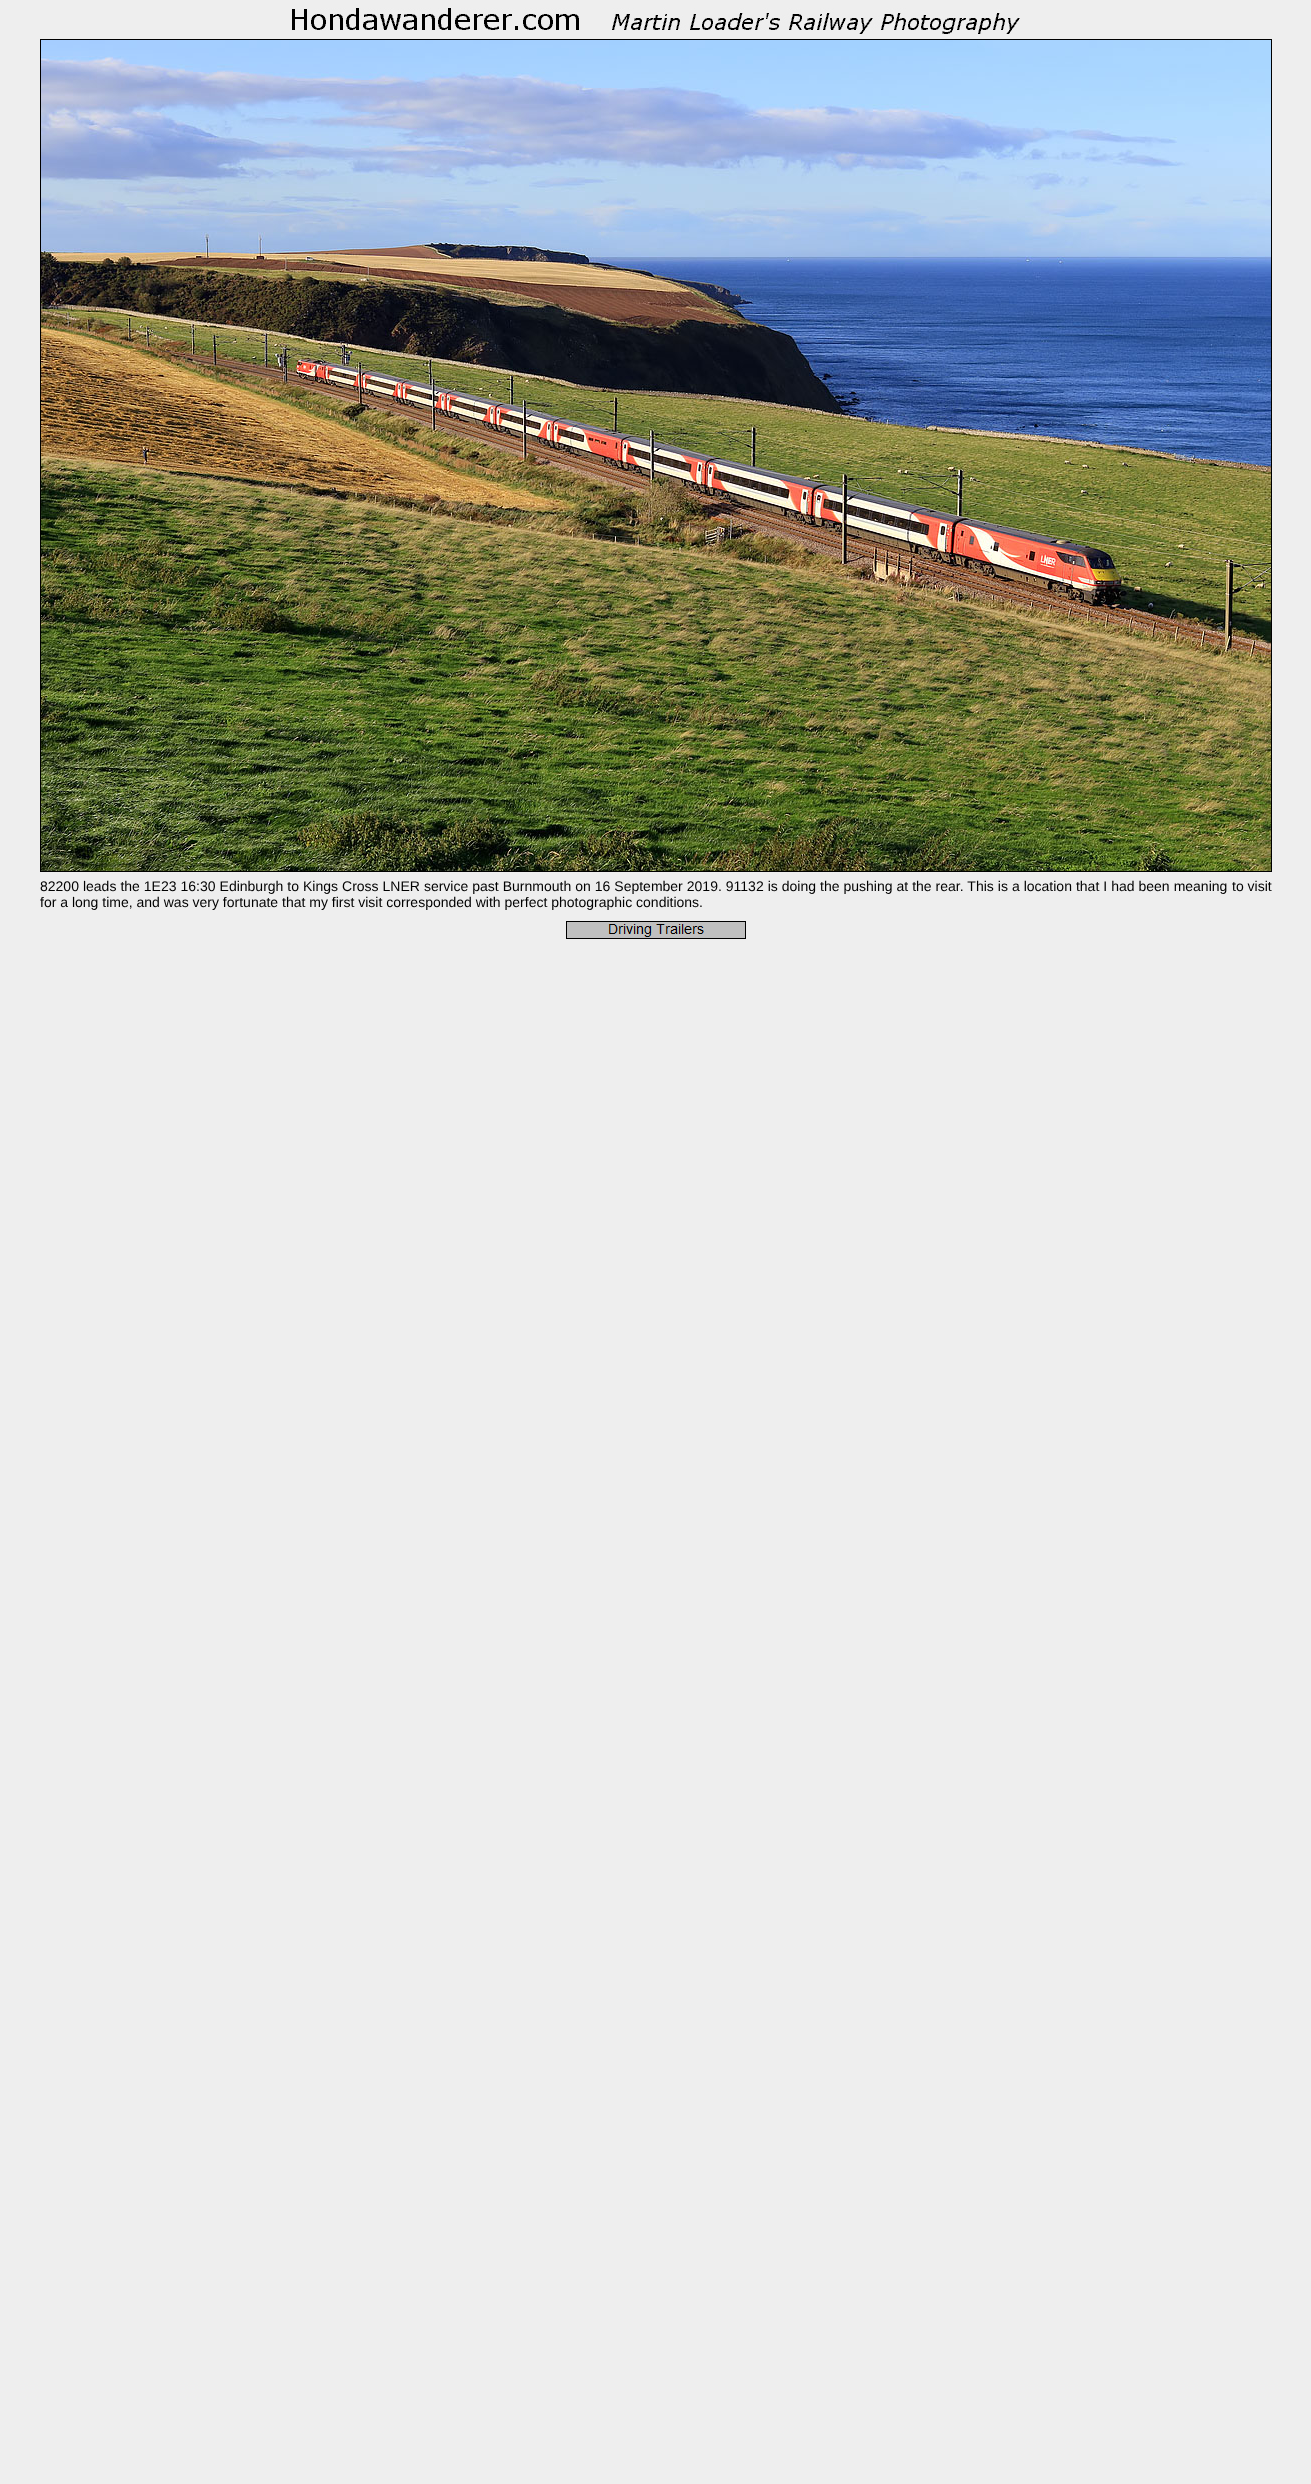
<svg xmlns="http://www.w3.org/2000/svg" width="1311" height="2484">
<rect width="100%" height="100%" fill="#eee"/>
<image x="292" y="8" width="728" height="26" href="media/1.png"/>
<rect x="40.5" y="39.5" width="1231" height="832" fill="none" stroke="#000"/>
<image x="41" y="40" width="1230" height="831" href="media/2.png"/>
<text x="40" y="891" word-spacing="0.1" style="font-family:Liberation Sans;font-size:14px;fill:#000">82200 leads the 1E23 16:30 Edinburgh to Kings Cross LNER service past Burnmouth on 16 September 2019. 91132 is doing the pushing at the rear. This is a location that I had been meaning</text>
<text x="1232" y="891" style="font-family:Liberation Sans;font-size:14px;fill:#000">to visit</text>
<text x="40" y="907" style="font-family:Liberation Sans;font-size:14px;fill:#000">for a long time, and was very fortunate that my first visit corresponded with perfect photographic conditions.</text>
<image x="566" y="921" width="180" height="18" href="media/3.png"/>
</svg>
